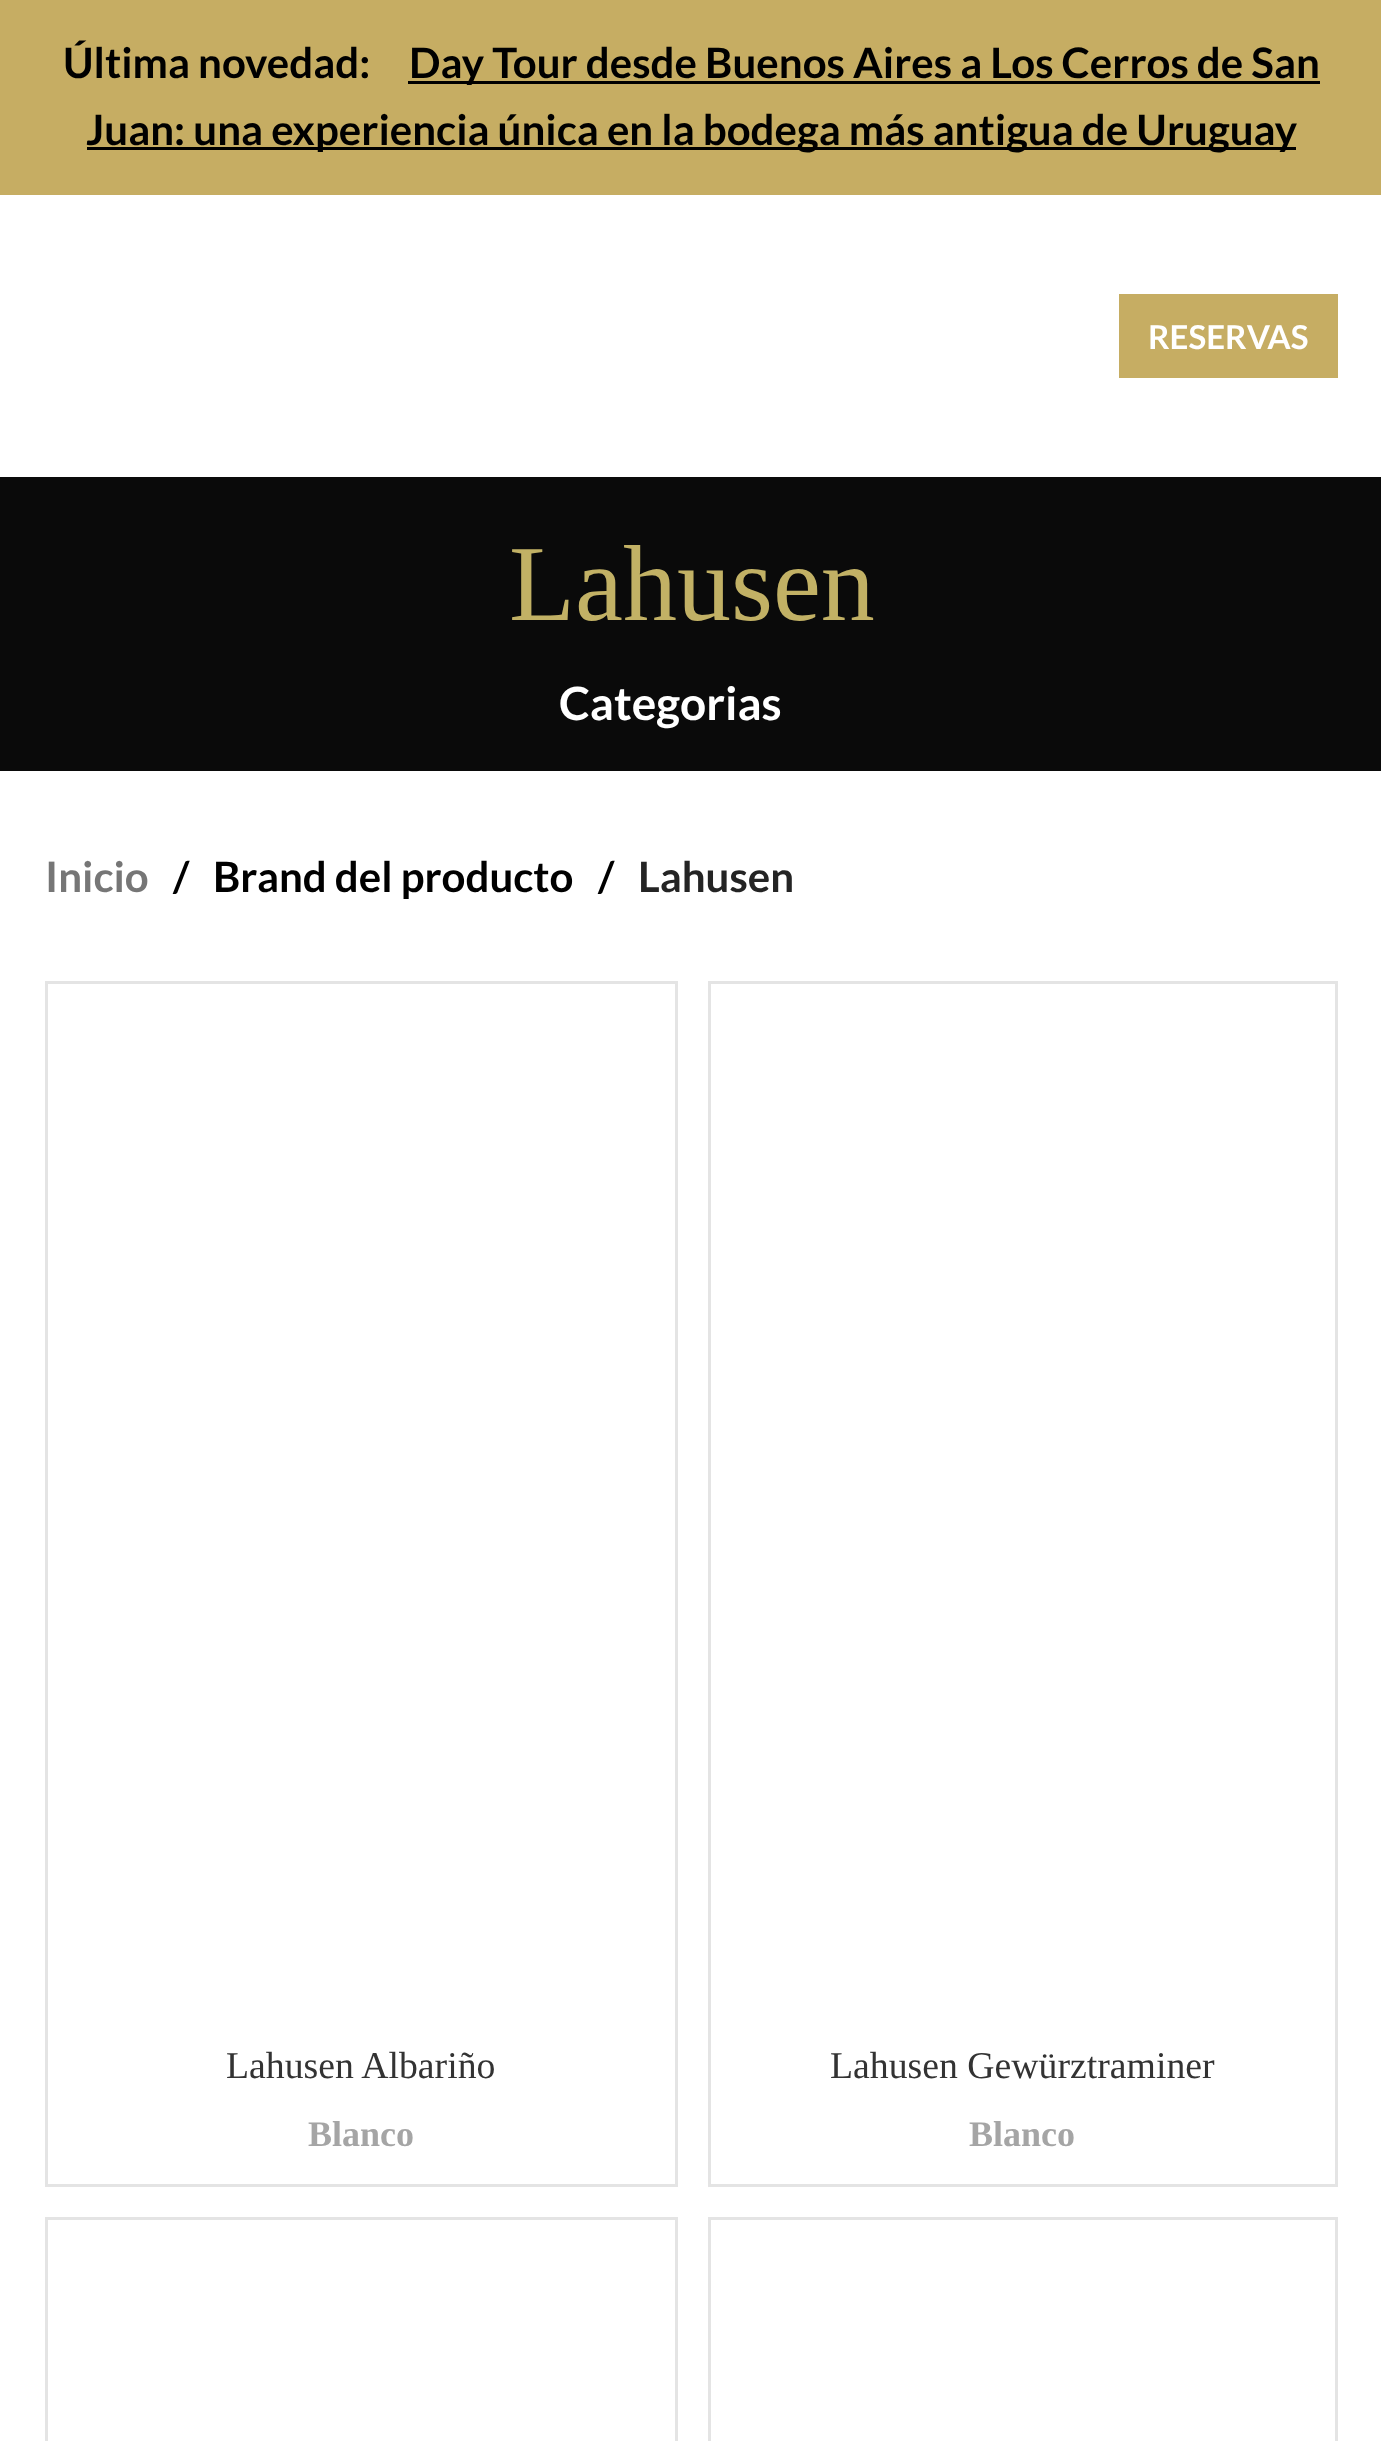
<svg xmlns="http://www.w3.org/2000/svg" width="1381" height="2441">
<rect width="100%" height="100%" fill="#fff"/>
<rect width="1381" height="195" fill="#c6ad63"/>
<text x="63" y="78" style="font-family:Lato;font-size:42px;font-weight:bold;fill:#000">Última novedad:</text>
<rect x="408" y="81" width="912" height="3" fill="#000"/>
<text x="409" y="78" style="font-family:Lato;font-size:42px;font-weight:bold;fill:#000">Day Tour desde Buenos Aires a Los Cerros de San</text>
<rect x="87" y="147" width="1209" height="3" fill="#000"/>
<text x="86" y="145" style="font-family:Lato;font-size:42px;font-weight:bold;fill:#000">Juan: una experiencia única en la bodega más antigua de Uruguay</text>
<rect x="1119" y="294" width="219" height="84" fill="#c6ad63"/>
<text x="1148" y="349" style="font-family:Lato;font-size:33px;font-weight:bold;fill:#fff">RESERVAS</text>
<rect y="477" width="1381" height="294" fill="#0a0a0a"/>
<text x="509" y="620" style="font-family:Liberation Serif;font-size:108px;fill:#c2b165">Lahusen</text>
<text x="559" y="720" style="font-family:Lato;font-size:46px;font-weight:bold;fill:#fff">Categorias</text>
<text x="45" y="892" style="font-family:Lato;font-size:42px;font-weight:bold;fill:#767676">Inicio</text>
<text x="173" y="892" style="font-family:Lato;font-size:42px;font-weight:bold;fill:#000">/</text>
<text x="213" y="892" style="font-family:Lato;font-size:42px;font-weight:bold;fill:#000">Brand del producto</text>
<text x="598" y="892" style="font-family:Lato;font-size:42px;font-weight:bold;fill:#000">/</text>
<text x="638" y="892" style="font-family:Lato;font-size:42px;font-weight:bold;fill:#242424">Lahusen</text>
<rect x="46.5" y="982.5" width="630" height="1203" fill="none" stroke="#e4e4e4" stroke-width="3"/>
<text x="226" y="2078" style="font-family:Liberation Serif;font-size:37.75px;fill:#333">Lahusen Albariño</text>
<text x="308" y="2146" style="font-family:Liberation Serif;font-size:36px;font-weight:bold;fill:#a5a5a5">Blanco</text>
<rect x="709.5" y="982.5" width="627" height="1203" fill="none" stroke="#e4e4e4" stroke-width="3"/>
<text x="830" y="2078" style="font-family:Liberation Serif;font-size:37.75px;fill:#333">Lahusen Gewürztraminer</text>
<text x="969" y="2146" style="font-family:Liberation Serif;font-size:36px;font-weight:bold;fill:#a5a5a5">Blanco</text>
<rect x="46.5" y="2218.5" width="630" height="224" fill="none" stroke="#e4e4e4" stroke-width="3"/>
<rect x="709.5" y="2218.5" width="627" height="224" fill="none" stroke="#e4e4e4" stroke-width="3"/>
</svg>
